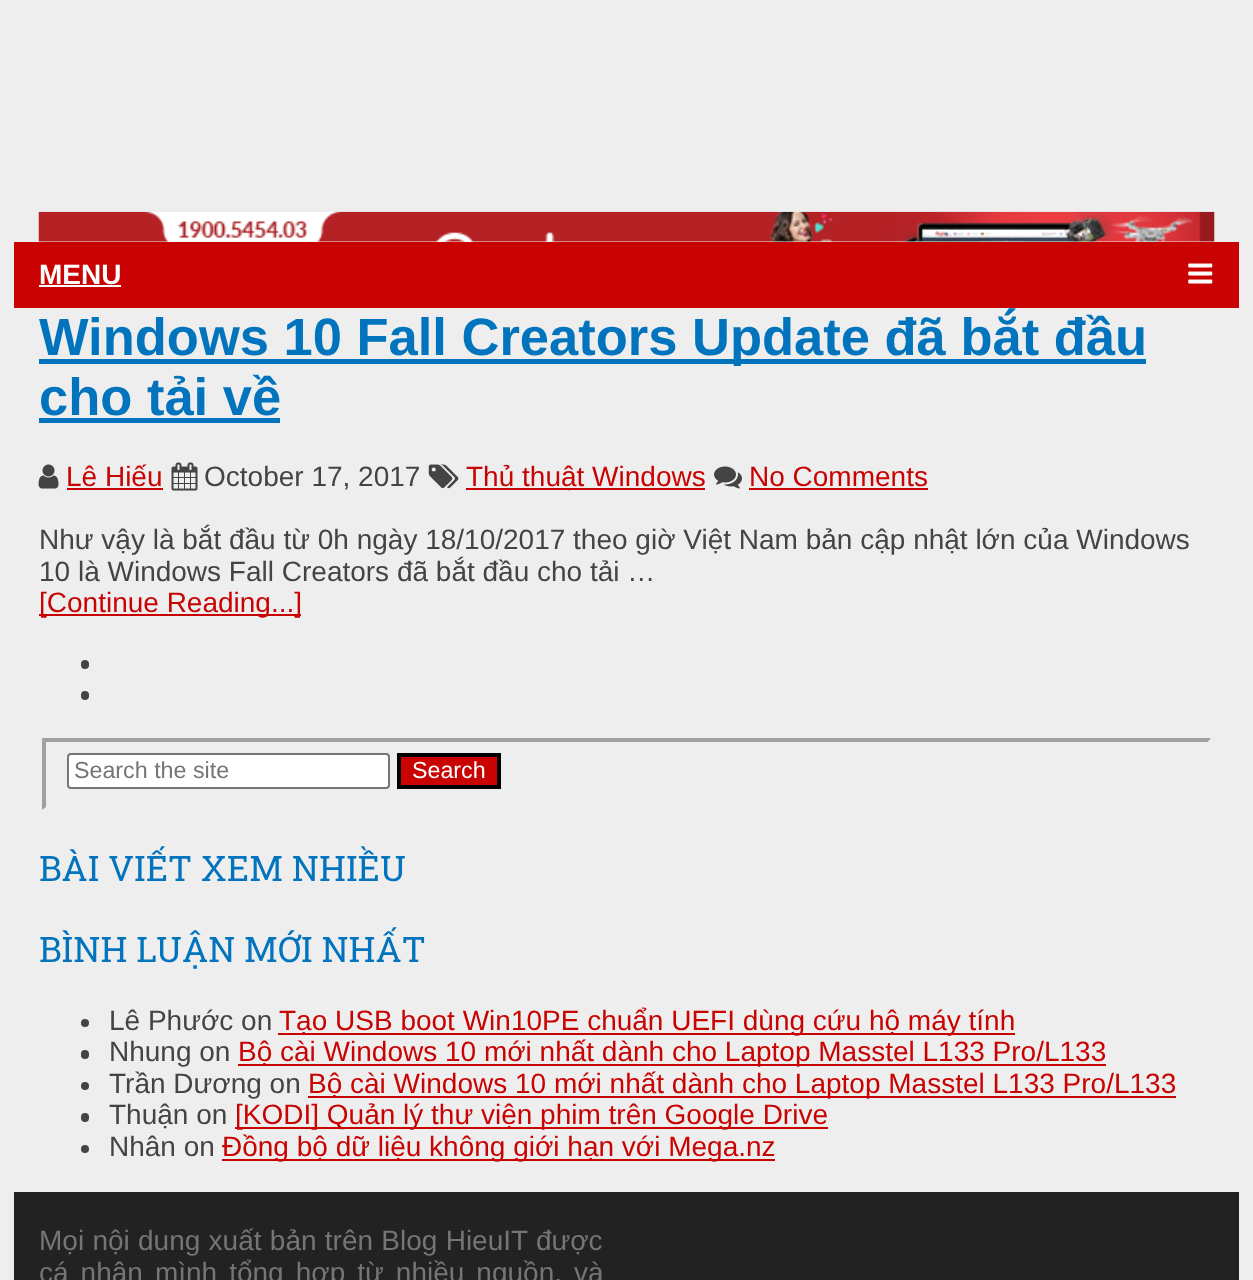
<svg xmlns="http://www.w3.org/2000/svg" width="1253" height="1280">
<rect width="100%" height="100%" fill="#eee"/>
<image x="38" y="211" width="1177" height="31" href="media/1.png"/>
<rect x="14" y="242" width="1225" height="66" fill="#c90202"/>
<text x="39" y="284" style="font-family:Liberation Sans;font-size:28px;font-weight:bold;fill:#fff">MENU</text>
<rect x="39" y="285" width="82" height="2" fill="#fff"/>
<image x="1188" y="263" width="25" height="21" href="media/2.png"/>
<rect x="39" y="359" width="1107" height="5" fill="#0274be"/>
<text x="39" y="355" style="font-family:Liberation Sans;font-size:52.5px;font-weight:bold;fill:#0274be">Windows 10 Fall Creators Update đã bắt đầu</text>
<text x="39" y="415" style="font-family:Liberation Sans;font-size:52.5px;font-weight:bold;fill:#0274be">cho tải về</text>
<rect x="39" y="418" width="241" height="5" fill="#0274be"/>
<image x="38" y="464" width="21" height="25" href="media/3.png"/>
<text x="66" y="486" style="font-family:Liberation Sans;font-size:28px;fill:#c90202">Lê Hiếu</text>
<rect x="67" y="488" width="96" height="2" fill="#c90202"/>
<image x="171" y="462" width="27" height="29" href="media/4.png"/>
<text x="204" y="486" style="font-family:Liberation Sans;font-size:28px;fill:#444">October 17, 2017</text>
<image x="428" y="464" width="31" height="25" href="media/5.png"/>
<rect x="466" y="488" width="239" height="2" fill="#c90202"/>
<text x="466" y="486" style="font-family:Liberation Sans;font-size:28px;fill:#c90202">Thủ thuật Windows</text>
<image x="714" y="466" width="28" height="23" href="media/6.png"/>
<text x="749" y="486" style="font-family:Liberation Sans;font-size:28px;fill:#c90202">No Comments</text>
<rect x="749" y="488" width="179" height="2" fill="#c90202"/>
<text x="39" y="549" style="font-family:Liberation Sans;font-size:28px;fill:#444">Như vậy là bắt đầu từ 0h ngày 18/10/2017 theo giờ Việt Nam bản cập nhật lớn của Windows</text>
<text x="39" y="581" style="font-family:Liberation Sans;font-size:28px;fill:#444">10 là Windows Fall Creators đã bắt đầu cho tải …</text>
<rect x="39" y="614" width="262" height="2" fill="#c90202"/>
<text x="39" y="612" style="font-family:Liberation Sans;font-size:28px;fill:#c90202">[Continue Reading...]</text>
<rect x="81" y="660" width="8" height="9" rx="4" fill="#444"/>
<rect x="81" y="691" width="8" height="9" rx="4" fill="#444"/>
<path d="M42 738h1169l-3 4h-1162z" fill="#9f9f9f"/>
<path d="M1211 738v72l-3-3v-65z" fill="#efefef"/>
<path d="M42 810v-72l4 4v65z" fill="#9f9f9f"/>
<rect x="68" y="754" width="321" height="34" rx="3" fill="#fff" stroke="#767676" stroke-width="2"/>
<text x="74" y="778" style="font-family:Liberation Sans;font-size:23.25px;fill:#757575">Search the site</text>
<rect x="399" y="755" width="100" height="32" fill="#c90202" stroke="#000" stroke-width="4"/>
<text x="412" y="778" style="font-family:Liberation Sans;font-size:23.25px;fill:#fff">Search</text>
<text x="39" y="881" style="font-family:Roboto Slab;font-size:35px;fill:#0274be">BÀI VIẾT XEM NHIỀU</text>
<text x="39" y="962" style="font-family:Roboto Slab;font-size:35px;fill:#0274be">BÌNH LUẬN MỚI NHẤT</text>
<circle cx="85" cy="1023" r="4" fill="#444"/>
<text x="109" y="1030" style="font-family:Liberation Sans;font-size:28px;fill:#444">Lê Phước on</text>
<rect x="278" y="1033" width="737" height="2" fill="#c90202"/>
<text x="279" y="1030" style="font-family:Liberation Sans;font-size:28px;fill:#c90202">Tạo USB boot Win10PE chuẩn UEFI dùng cứu hộ máy tính</text>
<rect x="81" y="1050" width="8" height="9" rx="4" fill="#444"/>
<text x="109" y="1061" style="font-family:Liberation Sans;font-size:28px;fill:#444">Nhung on</text>
<rect x="238" y="1064" width="868" height="2" fill="#c90202"/>
<text x="238" y="1061" style="font-family:Liberation Sans;font-size:28px;fill:#c90202">Bộ cài Windows 10 mới nhất dành cho Laptop Masstel L133 Pro/L133</text>
<circle cx="85" cy="1086" r="4" fill="#444"/>
<text x="109" y="1093" style="font-family:Liberation Sans;font-size:28px;fill:#444">Trần Dương on</text>
<rect x="308" y="1096" width="868" height="2" fill="#c90202"/>
<text x="308" y="1093" style="font-family:Liberation Sans;font-size:28px;fill:#c90202">Bộ cài Windows 10 mới nhất dành cho Laptop Masstel L133 Pro/L133</text>
<rect x="81" y="1113" width="8" height="9" rx="4" fill="#444"/>
<text x="109" y="1124" style="font-family:Liberation Sans;font-size:28px;fill:#444">Thuận on</text>
<rect x="235" y="1127" width="593" height="2" fill="#c90202"/>
<text x="235" y="1124" style="font-family:Liberation Sans;font-size:28px;fill:#c90202">[KODI] Quản lý thư viện phim trên Google Drive</text>
<circle cx="85" cy="1149" r="4" fill="#444"/>
<text x="109" y="1156" style="font-family:Liberation Sans;font-size:28px;fill:#444">Nhân on</text>
<rect x="222" y="1159" width="553" height="2" fill="#c90202"/>
<text x="222" y="1156" style="font-family:Liberation Sans;font-size:28px;fill:#c90202">Đồng bộ dữ liệu không giới hạn với Mega.nz</text>
<rect x="14" y="1192" width="1225" height="88" fill="#222"/>
<text x="39" y="1250" word-spacing="0.5" style="font-family:Liberation Sans;font-size:28px;fill:#757575">Mọi nội dung xuất bản trên Blog HieuIT được</text>
<text x="39" y="1282" word-spacing="4.25" style="font-family:Liberation Sans;font-size:28px;fill:#757575">cá nhân mình tổng hợp từ nhiều nguồn, và</text>
</svg>
